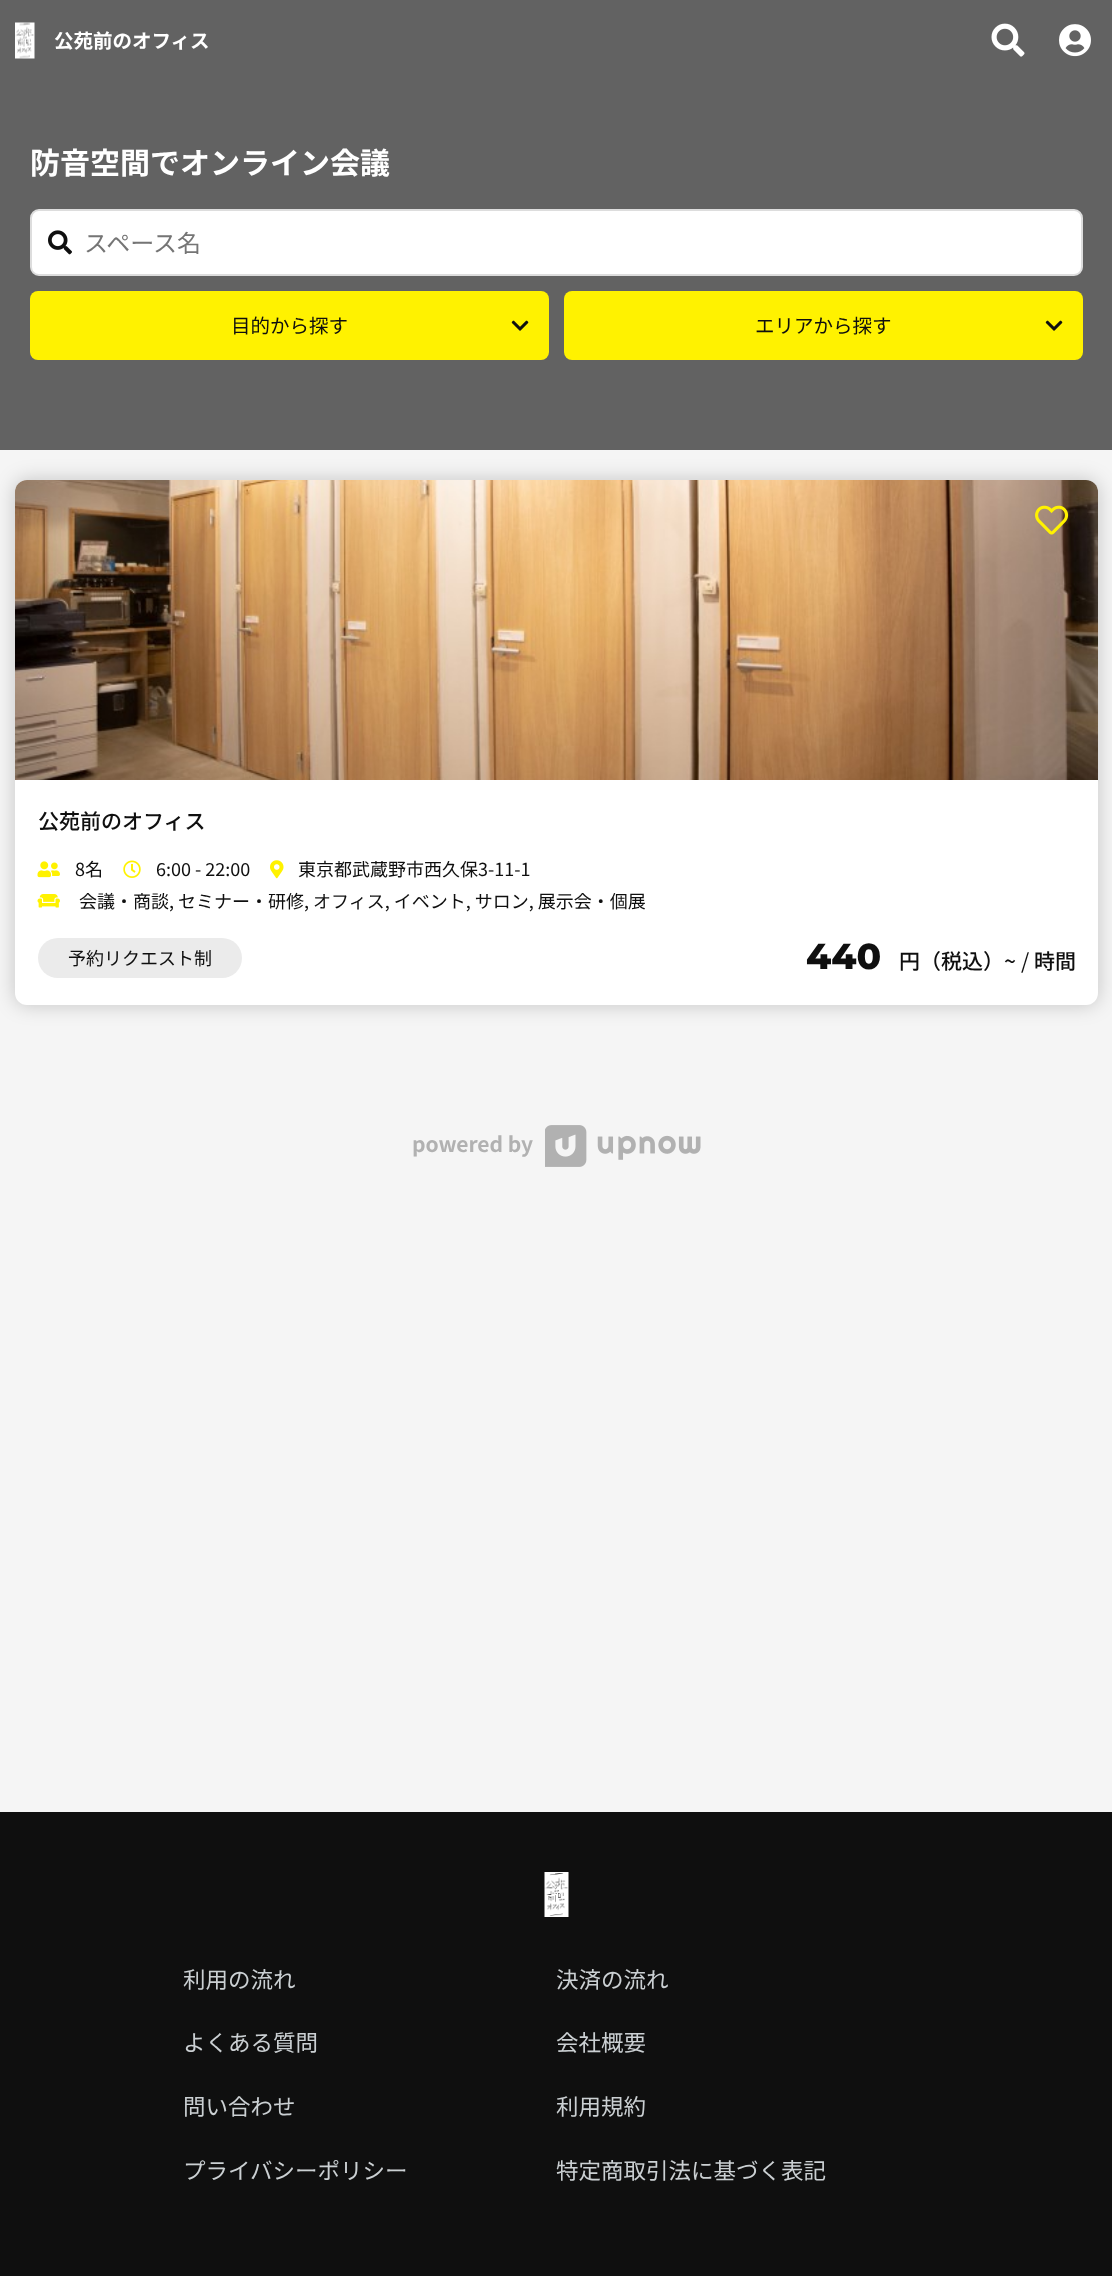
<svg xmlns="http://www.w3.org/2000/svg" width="1112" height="2276">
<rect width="100%" height="100%" fill="#f5f5f5"/>
<rect width="1112" height="450" fill="#626262"/>
<image x="15" y="22" width="20" height="37" href="media/1.png"/>
<text x="54" y="48" style="font-family:Noto Sans JP;font-size:19.5px;font-weight:bold;fill:#fff">公苑前のオフィス</text>
<image x="991" y="23" width="34" height="34" href="media/2.png"/>
<image x="1059" y="24" width="32" height="33" href="media/3.png"/>
<text x="30" y="174" style="font-family:Noto Sans JP;font-size:30px;font-weight:bold;fill:#fff">防音空間でオンライン会議</text>
<rect x="31" y="210" width="1051" height="65" rx="8" fill="#fff" stroke="#ddd" stroke-width="2"/>
<image x="48" y="230" width="24" height="25" href="media/4.png"/>
<text x="84" y="252" style="font-family:Noto Sans JP;font-size:24px;fill:#757575">スペース名</text>
<rect x="30" y="291" width="519" height="69" rx="8" fill="#fff200"/>
<text x="231" y="333" style="font-family:Noto Sans JP;font-size:19.5px;fill:#0f0f0f">目的から探す</text>
<image x="511" y="320" width="18" height="11" href="media/5.png"/>
<rect x="564" y="291" width="519" height="69" rx="8" fill="#fff200"/>
<text x="755" y="333" style="font-family:Noto Sans JP;font-size:19.5px;fill:#0f0f0f">エリアから探す</text>
<image x="1045" y="320" width="18" height="11" href="media/5.png"/>
<rect x="15" y="480" width="1083" height="525" rx="12" fill="#00000033" filter="blur(10px)"/>
<rect x="15" y="480" width="1083" height="525" rx="12" fill="#fff"/>
<image x="15" y="480" width="1083" height="300" href="media/6.png"/>
<image x="1035" y="505" width="34" height="30" href="media/7.png"/>
<text x="38" y="829" style="font-family:Noto Sans JP;font-size:21px;font-weight:500;fill:#0f0f0f">公苑前のオフィス</text>
<image x="37" y="861" width="23" height="17" href="media/8.png"/>
<text x="75" y="876" style="font-family:Noto Sans JP;font-size:18px;fill:#0f0f0f">8名</text>
<image x="123" y="860" width="18" height="18" href="media/9.png"/>
<text x="156" y="876" style="font-family:Noto Sans JP;font-size:18px;fill:#0f0f0f">6:00 - 22:00</text>
<image x="270" y="860" width="14" height="19" href="media/10.png"/>
<text x="298" y="876" style="font-family:Noto Sans JP;font-size:18px;fill:#0f0f0f">東京都武蔵野市西久保3-11-1</text>
<image x="37" y="894" width="23" height="14" href="media/11.png"/>
<text x="79" y="908" style="font-family:Noto Sans JP;font-size:18px;fill:#0f0f0f">会議・商談, セミナー・研修, オフィス, イベント, サロン, 展示会・個展</text>
<rect x="38" y="938" width="204" height="40" rx="20" fill="#ebebeb"/>
<text x="68" y="965" style="font-family:Noto Sans JP;font-size:18px;fill:#0f0f0f">予約リクエスト制</text>
<text x="806" y="969" style="font-family:Montserrat;font-size:36px;font-weight:800;fill:#0f0f0f">440</text>
<text x="899" y="969" style="font-family:Noto Sans JP;font-size:21px;font-weight:500;fill:#0f0f0f">円（税込）~</text>
<text x="1021" y="969" style="font-family:Noto Sans JP;font-size:21px;fill:#0f0f0f">/</text>
<text x="1034" y="969" style="font-family:Noto Sans JP;font-size:21px;font-weight:500;fill:#0f0f0f">時間</text>
<text x="412" y="1152" style="font-family:Noto Sans JP;font-size:21px;font-weight:bold;fill:#b1b1b1">powered by</text>
<image x="545" y="1125" width="156" height="42" href="media/12.png"/>
<rect y="1812" width="1112" height="464" fill="#0f0f0f"/>
<image x="544" y="1872" width="25" height="45" href="media/13.png"/>
<text x="183" y="1988" style="font-family:Noto Sans JP;font-size:22.5px;fill:#cbd0d3">利用の流れ</text>
<text x="556" y="1988" style="font-family:Noto Sans JP;font-size:22.5px;fill:#cbd0d3">決済の流れ</text>
<text x="183" y="2051" style="font-family:Noto Sans JP;font-size:22.5px;fill:#cbd0d3">よくある質問</text>
<text x="556" y="2051" style="font-family:Noto Sans JP;font-size:22.5px;fill:#cbd0d3">会社概要</text>
<text x="183" y="2115" style="font-family:Noto Sans JP;font-size:22.5px;fill:#cbd0d3">問い合わせ</text>
<text x="556" y="2115" style="font-family:Noto Sans JP;font-size:22.5px;fill:#cbd0d3">利用規約</text>
<text x="183" y="2179" style="font-family:Noto Sans JP;font-size:22.5px;fill:#cbd0d3">プライバシーポリシー</text>
<text x="556" y="2179" style="font-family:Noto Sans JP;font-size:22.5px;fill:#cbd0d3">特定商取引法に基づく表記</text>
</svg>
